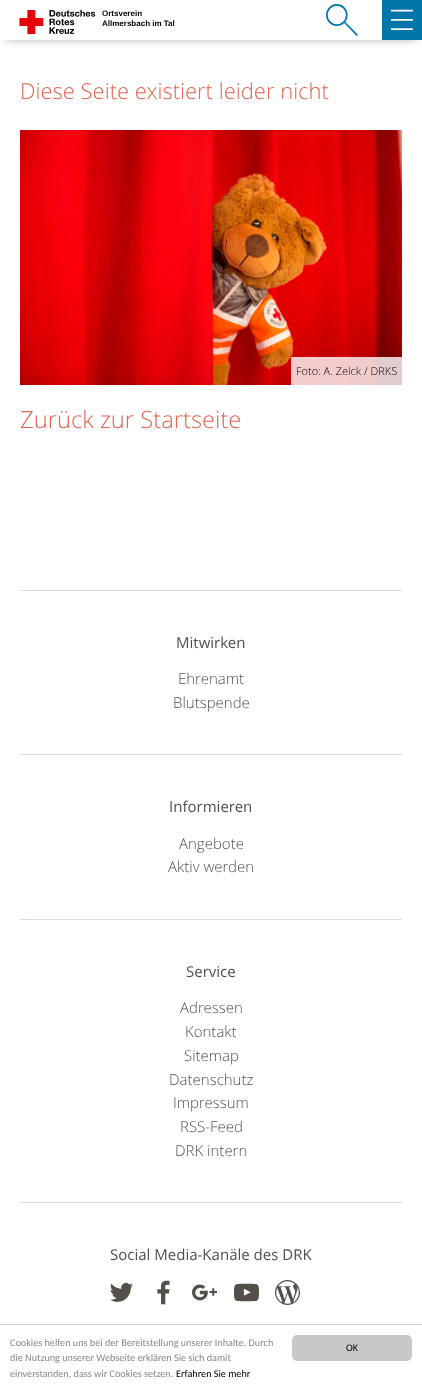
<svg xmlns="http://www.w3.org/2000/svg" width="422" height="1391">
<defs>
<clipPath id="clip1"><rect x="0" y="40" width="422" height="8"/></clipPath>
</defs>
<rect width="100%" height="100%" fill="#fff"/>
<g clip-path="url(#clip1)">
<rect x="6" y="12" width="410" height="28" fill="#b4b4b4" filter="blur(4px)"/>
</g>
<image x="19" y="10" width="77" height="24" href="media/1.png"/>
<text x="102" y="16" style="font-family:Liberation Sans;font-size:8px;font-weight:bold;fill:#000">Ortsverein</text>
<text x="102" y="26" style="font-family:Liberation Sans;font-size:8px;font-weight:bold;fill:#000">Allmersbach im Tal</text>
<rect x="382" width="40" height="40" fill="#0075a9"/>
<image x="391" y="9" width="22" height="21" href="media/2.png"/>
<image x="326" y="4" width="32" height="32" href="media/3.png"/>
<text x="20" y="99" style="font-family:Open Sans;font-size:22px;font-weight:300;fill:#e46450">Diese Seite existiert leider nicht</text>
<image x="20" y="130" width="382" height="255" href="media/4.png"/>
<rect x="291" y="357" width="111" height="28" fill="#ffffffcc"/>
<text x="296" y="375" style="font-family:Open Sans;font-size:11px;font-weight:300;fill:#000">Foto: A. Zelck / DRKS</text>
<text x="20" y="428" style="font-family:Open Sans;font-size:23.75px;font-weight:300;fill:#e46450">Zurück zur Startseite</text>
<rect x="20" y="590" width="382" height="1" fill="#e0ddd6"/>
<text x="176" y="648" style="font-family:Open Sans;font-size:15px;fill:#554f4a">Mitwirken</text>
<text x="178" y="684" style="font-family:Open Sans;font-size:15px;font-weight:300;fill:#554f4a">Ehrenamt</text>
<text x="173" y="708" style="font-family:Open Sans;font-size:15px;font-weight:300;fill:#554f4a">Blutspende</text>
<rect x="20" y="754" width="382" height="1" fill="#e0ddd6"/>
<text x="169" y="812" style="font-family:Open Sans;font-size:15px;fill:#554f4a">Informieren</text>
<text x="179" y="849" style="font-family:Open Sans;font-size:15px;font-weight:300;fill:#554f4a">Angebote</text>
<text x="168" y="872" style="font-family:Open Sans;font-size:15px;font-weight:300;fill:#554f4a">Aktiv werden</text>
<rect x="20" y="919" width="382" height="1" fill="#e0ddd6"/>
<text x="186" y="977" style="font-family:Open Sans;font-size:15px;fill:#554f4a">Service</text>
<text x="180" y="1013" style="font-family:Open Sans;font-size:15px;font-weight:300;fill:#554f4a">Adressen</text>
<text x="185" y="1037" style="font-family:Open Sans;font-size:15px;font-weight:300;fill:#554f4a">Kontakt</text>
<text x="184" y="1061" style="font-family:Open Sans;font-size:15px;font-weight:300;fill:#554f4a">Sitemap</text>
<text x="169" y="1085" style="font-family:Open Sans;font-size:15px;font-weight:300;fill:#554f4a">Datenschutz</text>
<text x="173" y="1108" style="font-family:Open Sans;font-size:15px;font-weight:300;fill:#554f4a">Impressum</text>
<text x="180" y="1132" style="font-family:Open Sans;font-size:15px;font-weight:300;fill:#554f4a">RSS-Feed</text>
<text x="175" y="1156" style="font-family:Open Sans;font-size:15px;font-weight:300;fill:#554f4a">DRK intern</text>
<rect x="20" y="1202" width="382" height="1" fill="#e0ddd6"/>
<text x="110" y="1260" style="font-family:Open Sans;font-size:15px;fill:#554f4a">Social Media-Kanäle des DRK</text>
<image x="110" y="1282" width="23" height="20" href="media/5.png"/>
<image x="157" y="1280" width="13" height="25" href="media/6.png"/>
<image x="192" y="1284" width="25" height="17" href="media/7.png"/>
<image x="234" y="1283" width="25" height="19" href="media/8.png"/>
<image x="275" y="1280" width="25" height="25" href="media/9.png"/>
<rect y="1324" width="422" height="1" fill="#ccc"/>
<text x="10" y="1346" style="font-family:Carlito;font-size:10.2px;fill:#888">Cookies helfen uns bei der Bereitstellung unserer Inhalte. Durch</text>
<text x="10" y="1361" style="font-family:Carlito;font-size:10.2px;fill:#888">die Nutzung unserer Webseite erklären Sie sich damit</text>
<text x="10" y="1377" style="font-family:Carlito;font-size:10.2px;fill:#888">einverstanden, dass wir Cookies setzen.</text>
<text x="176" y="1377" style="font-family:Carlito;font-size:10.2px;fill:#000">Erfahren Sie mehr</text>
<rect x="292" y="1335" width="120" height="26" rx="5" fill="#c8c8c8"/>
<text x="346" y="1351" style="font-family:Carlito;font-size:10.2px;fill:#000">OK</text>
</svg>
